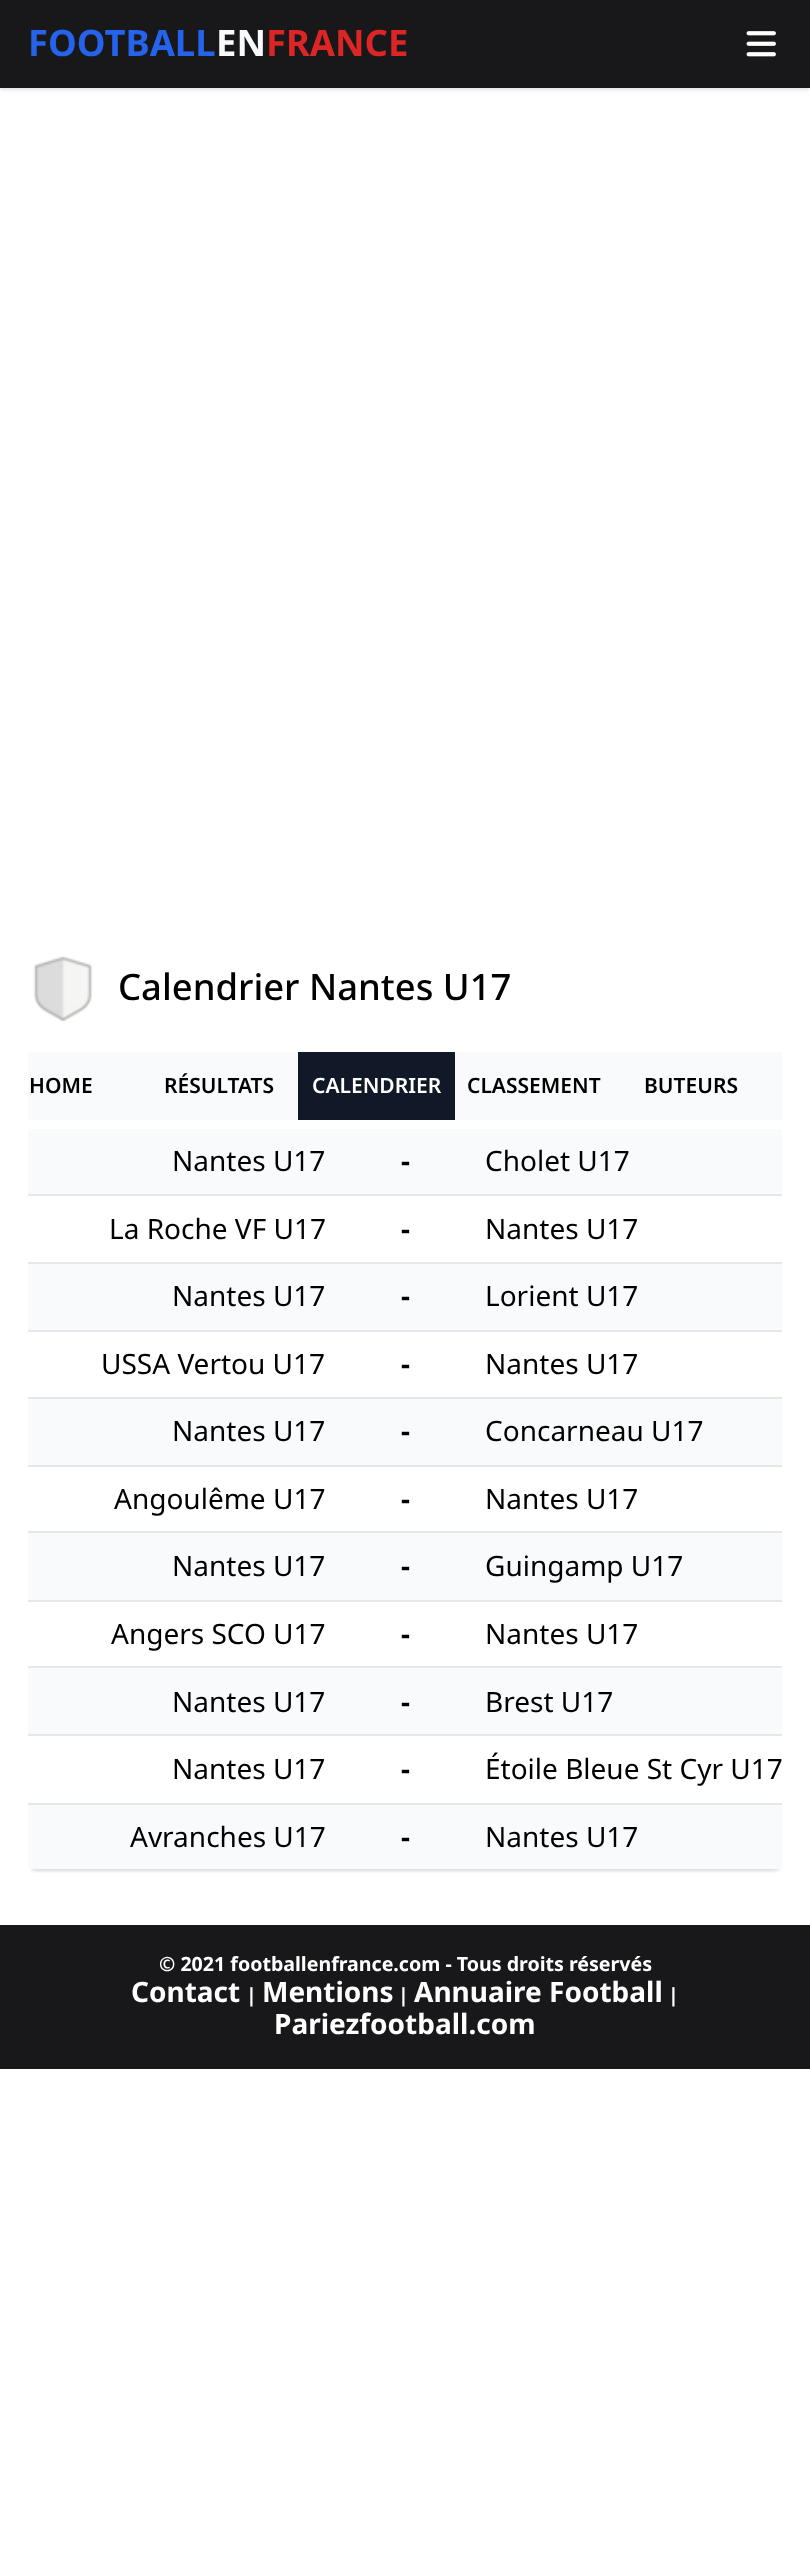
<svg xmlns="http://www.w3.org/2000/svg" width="810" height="2557">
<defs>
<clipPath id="clip1"><rect x="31" y="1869" width="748" height="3"/></clipPath>
<clipPath id="clip2"><rect x="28" y="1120" width="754" height="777"/></clipPath>
<clipPath id="clip3"><rect x="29" y="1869" width="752" height="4"/></clipPath>
</defs>
<rect width="100%" height="100%" fill="#fff"/>
<rect y="2" width="810" height="87" fill="#0000000f" filter="blur(2px)"/>
<rect y="2" width="810" height="87" fill="#0000001a" filter="blur(2.5px)"/>
<rect width="810" height="88" fill="#18181b"/>
<text x="28" y="56" style="font-family:Noto Sans;font-size:36.4px;font-weight:bold;fill:#2563eb">FOOTBALL</text>
<text x="216" y="56" style="font-family:Noto Sans;font-size:36.4px;font-weight:bold;fill:#f8fafc">EN</text>
<text x="266" y="56" style="font-family:Noto Sans;font-size:36.4px;font-weight:bold;fill:#dc2626">FRANCE</text>
<image x="746" y="31" width="30" height="26" href="media/1.png"/>
<image x="33" y="956" width="60" height="66" href="media/2.png"/>
<text x="118" y="1000" style="font-family:Noto Sans;font-size:36.4px;font-weight:500;fill:#000">Calendrier Nantes U17</text>
<rect x="28" y="1052" width="270" height="68" fill="#f8fafc"/>
<text x="29" y="1093" style="font-family:Noto Sans;font-size:21px;font-weight:600;fill:#000">HOME</text>
<text x="164" y="1093" style="font-family:Noto Sans;font-size:21px;font-weight:600;fill:#000">RÉSULTATS</text>
<rect x="298" y="1052" width="157" height="68" fill="#111827"/>
<text x="312" y="1093" style="font-family:Noto Sans;font-size:21px;font-weight:600;fill:#fff">CALENDRIER</text>
<rect x="455" y="1052" width="327" height="68" fill="#f8fafc"/>
<text x="467" y="1093" style="font-family:Noto Sans;font-size:21px;font-weight:600;fill:#000">CLASSEMENT</text>
<text x="644" y="1093" style="font-family:Noto Sans;font-size:21px;font-weight:600;fill:#000">BUTEURS</text>
<g clip-path="url(#clip1)">
<rect x="28" y="1131" width="754" height="740" rx="9" fill="#0000000f" filter="blur(2px)"/>
</g>
<g clip-path="url(#clip2)">
<g clip-path="url(#clip3)">
<rect x="28" y="1131" width="754" height="740" rx="9" fill="#0000001a" filter="blur(2.5px)"/>
</g>
</g>
<rect x="28" y="1129" width="754" height="65" fill="#f8fafc"/>
<text x="172" y="1171" style="font-family:Noto Sans;font-size:28px;fill:#000">Nantes U17</text>
<text x="401" y="1171" style="font-family:Noto Sans;font-size:28px;font-weight:bold;fill:#000">-</text>
<text x="485" y="1171" style="font-family:Noto Sans;font-size:28px;fill:#000">Cholet U17</text>
<rect x="28" y="1194" width="754" height="2" fill="#e5e7eb"/>
<text x="109" y="1239" style="font-family:Noto Sans;font-size:28px;fill:#000">La Roche VF U17</text>
<text x="401" y="1239" style="font-family:Noto Sans;font-size:28px;font-weight:bold;fill:#000">-</text>
<text x="485" y="1239" style="font-family:Noto Sans;font-size:28px;fill:#000">Nantes U17</text>
<rect x="28" y="1264" width="754" height="66" fill="#f8fafc"/>
<rect x="28" y="1262" width="754" height="2" fill="#e5e7eb"/>
<text x="172" y="1306" style="font-family:Noto Sans;font-size:28px;fill:#000">Nantes U17</text>
<text x="401" y="1306" style="font-family:Noto Sans;font-size:28px;font-weight:bold;fill:#000">-</text>
<text x="485" y="1306" style="font-family:Noto Sans;font-size:28px;fill:#000">Lorient U17</text>
<rect x="28" y="1330" width="754" height="2" fill="#e5e7eb"/>
<text x="101" y="1374" style="font-family:Noto Sans;font-size:28px;fill:#000">USSA Vertou U17</text>
<text x="401" y="1374" style="font-family:Noto Sans;font-size:28px;font-weight:bold;fill:#000">-</text>
<text x="485" y="1374" style="font-family:Noto Sans;font-size:28px;fill:#000">Nantes U17</text>
<rect x="28" y="1399" width="754" height="66" fill="#f8fafc"/>
<rect x="28" y="1397" width="754" height="2" fill="#e5e7eb"/>
<text x="172" y="1441" style="font-family:Noto Sans;font-size:28px;fill:#000">Nantes U17</text>
<text x="401" y="1441" style="font-family:Noto Sans;font-size:28px;font-weight:bold;fill:#000">-</text>
<text x="485" y="1441" style="font-family:Noto Sans;font-size:28px;fill:#000">Concarneau U17</text>
<rect x="28" y="1465" width="754" height="2" fill="#e5e7eb"/>
<text x="114" y="1509" style="font-family:Noto Sans;font-size:28px;fill:#000">Angoulême U17</text>
<text x="401" y="1509" style="font-family:Noto Sans;font-size:28px;font-weight:bold;fill:#000">-</text>
<text x="485" y="1509" style="font-family:Noto Sans;font-size:28px;fill:#000">Nantes U17</text>
<rect x="28" y="1533" width="754" height="67" fill="#f8fafc"/>
<rect x="28" y="1531" width="754" height="2" fill="#e5e7eb"/>
<text x="172" y="1576" style="font-family:Noto Sans;font-size:28px;fill:#000">Nantes U17</text>
<text x="401" y="1576" style="font-family:Noto Sans;font-size:28px;font-weight:bold;fill:#000">-</text>
<text x="485" y="1576" style="font-family:Noto Sans;font-size:28px;fill:#000">Guingamp U17</text>
<rect x="28" y="1600" width="754" height="2" fill="#e5e7eb"/>
<text x="111" y="1644" style="font-family:Noto Sans;font-size:28px;fill:#000">Angers SCO U17</text>
<text x="401" y="1644" style="font-family:Noto Sans;font-size:28px;font-weight:bold;fill:#000">-</text>
<text x="485" y="1644" style="font-family:Noto Sans;font-size:28px;fill:#000">Nantes U17</text>
<rect x="28" y="1668" width="754" height="66" fill="#f8fafc"/>
<rect x="28" y="1666" width="754" height="2" fill="#e5e7eb"/>
<text x="172" y="1712" style="font-family:Noto Sans;font-size:28px;fill:#000">Nantes U17</text>
<text x="401" y="1712" style="font-family:Noto Sans;font-size:28px;font-weight:bold;fill:#000">-</text>
<text x="485" y="1712" style="font-family:Noto Sans;font-size:28px;fill:#000">Brest U17</text>
<rect x="28" y="1734" width="754" height="2" fill="#e5e7eb"/>
<text x="172" y="1779" style="font-family:Noto Sans;font-size:28px;fill:#000">Nantes U17</text>
<text x="401" y="1779" style="font-family:Noto Sans;font-size:28px;font-weight:bold;fill:#000">-</text>
<text x="485" y="1779" style="font-family:Noto Sans;font-size:28px;fill:#000">Étoile Bleue St Cyr U17</text>
<rect x="28" y="1805" width="754" height="64" fill="#f8fafc"/>
<rect x="28" y="1803" width="754" height="2" fill="#e5e7eb"/>
<text x="130" y="1847" style="font-family:Noto Sans;font-size:28px;fill:#000">Avranches U17</text>
<text x="401" y="1847" style="font-family:Noto Sans;font-size:28px;font-weight:bold;fill:#000">-</text>
<text x="485" y="1847" style="font-family:Noto Sans;font-size:28px;fill:#000">Nantes U17</text>
<rect y="1925" width="810" height="144" fill="#18181b"/>
<text x="159" y="1971" style="font-family:Noto Sans;font-size:19.6px;font-weight:bold;fill:#fff">© 2021 footballenfrance.com - Tous droits réservés</text>
<text x="131" y="2002" style="font-family:Noto Sans;font-size:28px;font-weight:bold;fill:#fff">Contact</text>
<text x="246" y="2002" style="font-family:Noto Sans;font-size:19.6px;font-weight:bold;fill:#fff">|</text>
<text x="262" y="2002" style="font-family:Noto Sans;font-size:28px;font-weight:bold;fill:#fff">Mentions</text>
<text x="398" y="2002" style="font-family:Noto Sans;font-size:19.6px;font-weight:bold;fill:#fff">|</text>
<text x="414" y="2002" style="font-family:Noto Sans;font-size:28px;font-weight:bold;fill:#fff">Annuaire Football</text>
<text x="668" y="2002" style="font-family:Noto Sans;font-size:19.6px;font-weight:bold;fill:#fff">|</text>
<text x="274" y="2034" style="font-family:Noto Sans;font-size:28px;font-weight:bold;fill:#fff">Pariezfootball.com</text>
</svg>
